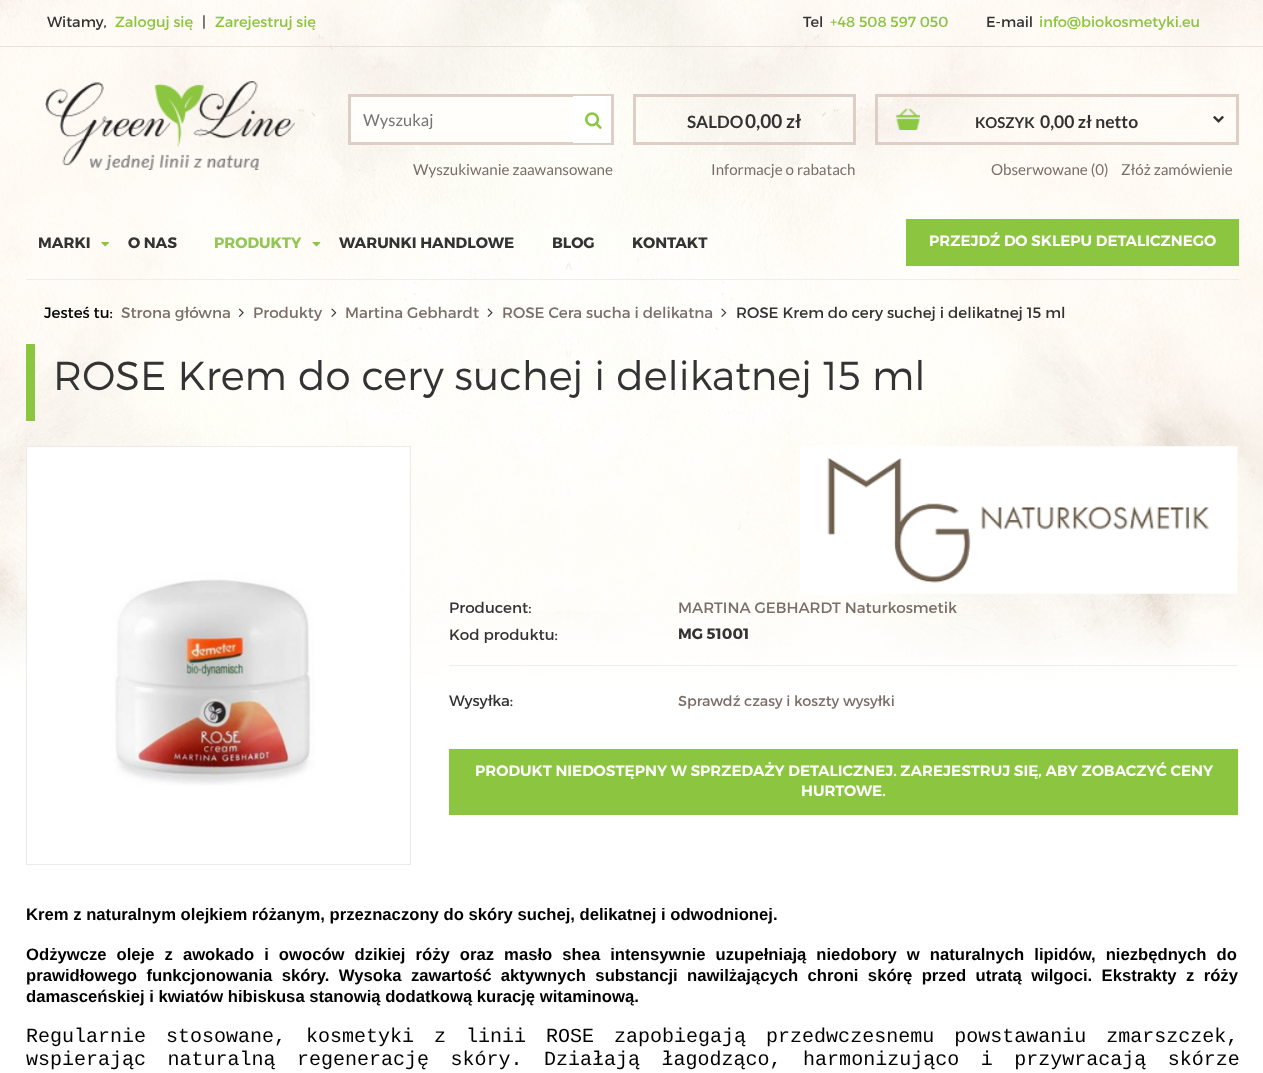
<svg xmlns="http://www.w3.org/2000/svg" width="1263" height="1073">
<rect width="100%" height="100%" fill="#fff"/>
<image x="0" y="0" width="1263" height="685" href="media/1.png"/>
<rect y="46" width="1263" height="1" fill="#eae0d8"/>
<text x="47" y="27" style="font-family:Montserrat;font-size:14.6px;fill:#333">Witamy,</text>
<text x="115" y="27" style="font-family:Montserrat;font-size:14.6px;fill:#8cc540">Zaloguj się</text>
<text x="202" y="27" style="font-family:Montserrat;font-size:14.6px;fill:#333">|</text>
<text x="215" y="27" style="font-family:Montserrat;font-size:14.6px;fill:#8cc540">Zarejestruj się</text>
<text x="803" y="27" style="font-family:Montserrat;font-size:14.6px;fill:#333">Tel</text>
<text x="830" y="27" style="font-family:Montserrat;font-size:14.6px;fill:#8cc540">+48 508 597 050</text>
<text x="986" y="27" style="font-family:Montserrat;font-size:14.6px;fill:#333">E-mail</text>
<text x="1039" y="27" style="font-family:Montserrat;font-size:14.6px;fill:#8cc540">info@biokosmetyki.eu</text>
<image x="45" y="81" width="250" height="89" href="media/2.png"/>
<rect x="351" y="97" width="222" height="45" fill="#fffefb"/>
<rect x="349.5" y="95.5" width="263" height="48" fill="none" stroke="#decec6" stroke-width="3"/>
<text x="363" y="126" style="font-family:Lato;font-size:16.5px;fill:#757575">Wyszukaj</text>
<rect x="573" y="96" width="38" height="47" fill="#fff"/>
<image x="585" y="112" width="17" height="17" href="media/3.png"/>
<text x="413" y="175" style="font-family:Lato;font-size:15.15px;fill:#7b6e69">Wyszukiwanie zaawansowane</text>
<rect x="634.5" y="95.5" width="220" height="48" fill="none" stroke="#decec6" stroke-width="3"/>
<text x="687" y="128" style="font-family:Lato;font-size:17px;font-weight:bold;fill:#333">SALDO</text>
<text x="745" y="128" style="font-family:Lato;font-size:19px;font-weight:bold;fill:#333">0,00 zł</text>
<text x="711" y="175" style="font-family:Lato;font-size:15.15px;fill:#7b6e69">Informacje o rabatach</text>
<image x="896" y="108" width="24" height="22" href="media/4.png"/>
<rect x="876.5" y="95.5" width="361" height="48" fill="none" stroke="#decec6" stroke-width="3"/>
<text x="975" y="128" style="font-family:Lato;font-size:15px;font-weight:bold;fill:#333">KOSZYK</text>
<text x="1040" y="128" style="font-family:Lato;font-size:17.5px;font-weight:bold;fill:#333">0,00 zł netto</text>
<image x="1213" y="115" width="11" height="8" href="media/5.png"/>
<text x="991" y="175" style="font-family:Lato;font-size:15.15px;fill:#7b6e69">Obserwowane (0)</text>
<text x="1121" y="175" style="font-family:Lato;font-size:15.15px;fill:#7b6e69">Złóż zamówienie</text>
<text x="38" y="248" style="font-family:Montserrat;font-size:15.15px;font-weight:bold;fill:#333">MARKI</text>
<image x="101" y="242" width="9" height="5" href="media/6.png"/>
<text x="128" y="248" style="font-family:Montserrat;font-size:15.15px;font-weight:bold;fill:#333">O NAS</text>
<text x="214" y="248" style="font-family:Montserrat;font-size:15.15px;font-weight:bold;fill:#92c755">PRODUKTY</text>
<image x="312" y="242" width="9" height="5" href="media/7.png"/>
<text x="339" y="248" style="font-family:Montserrat;font-size:15.15px;font-weight:bold;fill:#333">WARUNKI HANDLOWE</text>
<text x="552" y="248" style="font-family:Montserrat;font-size:15.15px;font-weight:bold;fill:#333">BLOG</text>
<text x="632" y="248" style="font-family:Montserrat;font-size:15.15px;font-weight:bold;fill:#333">KONTAKT</text>
<rect x="906" y="219" width="333" height="47" fill="#8cc540"/>
<text x="929" y="246" style="font-family:Montserrat;font-size:15.15px;font-weight:600;fill:#fff">PRZEJDŹ DO SKLEPU DETALICZNEGO</text>
<rect x="26" y="279" width="1213" height="1" fill="#eee"/>
<text x="44" y="318" style="font-family:Montserrat;font-size:15.15px;fill:#000">Jesteś tu:</text>
<text x="121" y="318" style="font-family:Montserrat;font-size:15.15px;fill:#7b6e69">Strona główna</text>
<image x="238" y="308" width="6" height="9" href="media/8.png"/>
<text x="253" y="318" style="font-family:Montserrat;font-size:15.15px;fill:#7b6e69">Produkty</text>
<image x="331" y="308" width="6" height="9" href="media/9.png"/>
<text x="345" y="318" style="font-family:Montserrat;font-size:15.15px;fill:#7b6e69">Martina Gebhardt</text>
<image x="487" y="308" width="6" height="9" href="media/10.png"/>
<text x="502" y="318" style="font-family:Montserrat;font-size:15.15px;fill:#7b6e69">ROSE Cera sucha i delikatna</text>
<image x="721" y="308" width="6" height="9" href="media/11.png"/>
<text x="736" y="318" style="font-family:Montserrat;font-size:15.15px;fill:#333">ROSE Krem do cery suchej i delikatnej 15 ml</text>
<rect x="26" y="344" width="9" height="77" fill="#8cc540"/>
<text x="53" y="390" style="font-family:Montserrat;font-size:40.5px;font-weight:300;fill:#333">ROSE Krem do cery suchej i delikatnej 15 ml</text>
<rect x="26.5" y="446.5" width="384" height="418" fill="none" stroke="#ebebeb"/>
<image x="27" y="447" width="382" height="339" href="media/12.png"/>
<image x="800" y="446" width="438" height="148" href="media/13.png"/>
<rect x="449" y="665" width="789" height="1" fill="#eee"/>
<text x="449" y="613" style="font-family:Montserrat;font-size:15.15px;fill:#333">Producent:</text>
<text x="678" y="613" style="font-family:Montserrat;font-size:15.15px;fill:#7b6e69">MARTINA GEBHARDT Naturkosmetik</text>
<text x="449" y="640" style="font-family:Montserrat;font-size:15.15px;fill:#333">Kod produktu:</text>
<text x="678" y="639" style="font-family:Montserrat;font-size:15.15px;font-weight:bold;fill:#333">MG 51001</text>
<text x="449" y="706" style="font-family:Montserrat;font-size:15.15px;fill:#333">Wysyłka:</text>
<text x="678" y="706" style="font-family:Montserrat;font-size:14.4px;fill:#7b6e69">Sprawdź czasy i koszty wysyłki</text>
<rect x="449" y="749" width="789" height="66" fill="#8cc540"/>
<text x="475" y="776" style="font-family:Montserrat;font-size:15.15px;font-weight:600;fill:#fff">PRODUKT NIEDOSTĘPNY W SPRZEDAŻY DETALICZNEJ. ZAREJESTRUJ SIĘ, ABY ZOBACZYĆ CENY</text>
<text x="801" y="796" style="font-family:Montserrat;font-size:15.15px;font-weight:600;fill:#fff">HURTOWE.</text>
<text x="26" y="920" style="font-family:Liberation Sans;font-size:16.67px;font-weight:bold;fill:#000">Krem z naturalnym olejkiem różanym, przeznaczony do skóry suchej, delikatnej i odwodnionej.</text>
<text x="26" y="960" word-spacing="5.4" style="font-family:Liberation Sans;font-size:16.67px;font-weight:bold;fill:#000">Odżywcze oleje z awokado i owoców dzikiej róży oraz masło shea intensywnie uzupełniają niedobory w naturalnych lipidów, niezbędnych do</text>
<text x="26" y="981" word-spacing="4.75" style="font-family:Liberation Sans;font-size:16.67px;font-weight:bold;fill:#000">prawidłowego funkcjonowania skóry. Wysoka zawartość aktywnych substancji nawilżających chroni skórę przed utratą wilgoci. Ekstrakty z róży</text>
<text x="26" y="1002" style="font-family:Liberation Sans;font-size:16.67px;font-weight:bold;fill:#000">damasceńskiej i kwiatów hibiskusa stanowią dodatkową kurację witaminową.</text>
<text x="26" y="1042" word-spacing="8" style="font-family:Liberation Mono;font-size:20px;fill:#000">Regularnie stosowane, kosmetyki z linii ROSE zapobiegają przedwczesnemu powstawaniu zmarszczek,</text>
<text x="26" y="1065" word-spacing="9.5" style="font-family:Liberation Mono;font-size:20px;fill:#000">wspierając naturalną regenerację skóry. Działają łagodząco, harmonizująco i przywracają skórze</text>
</svg>
